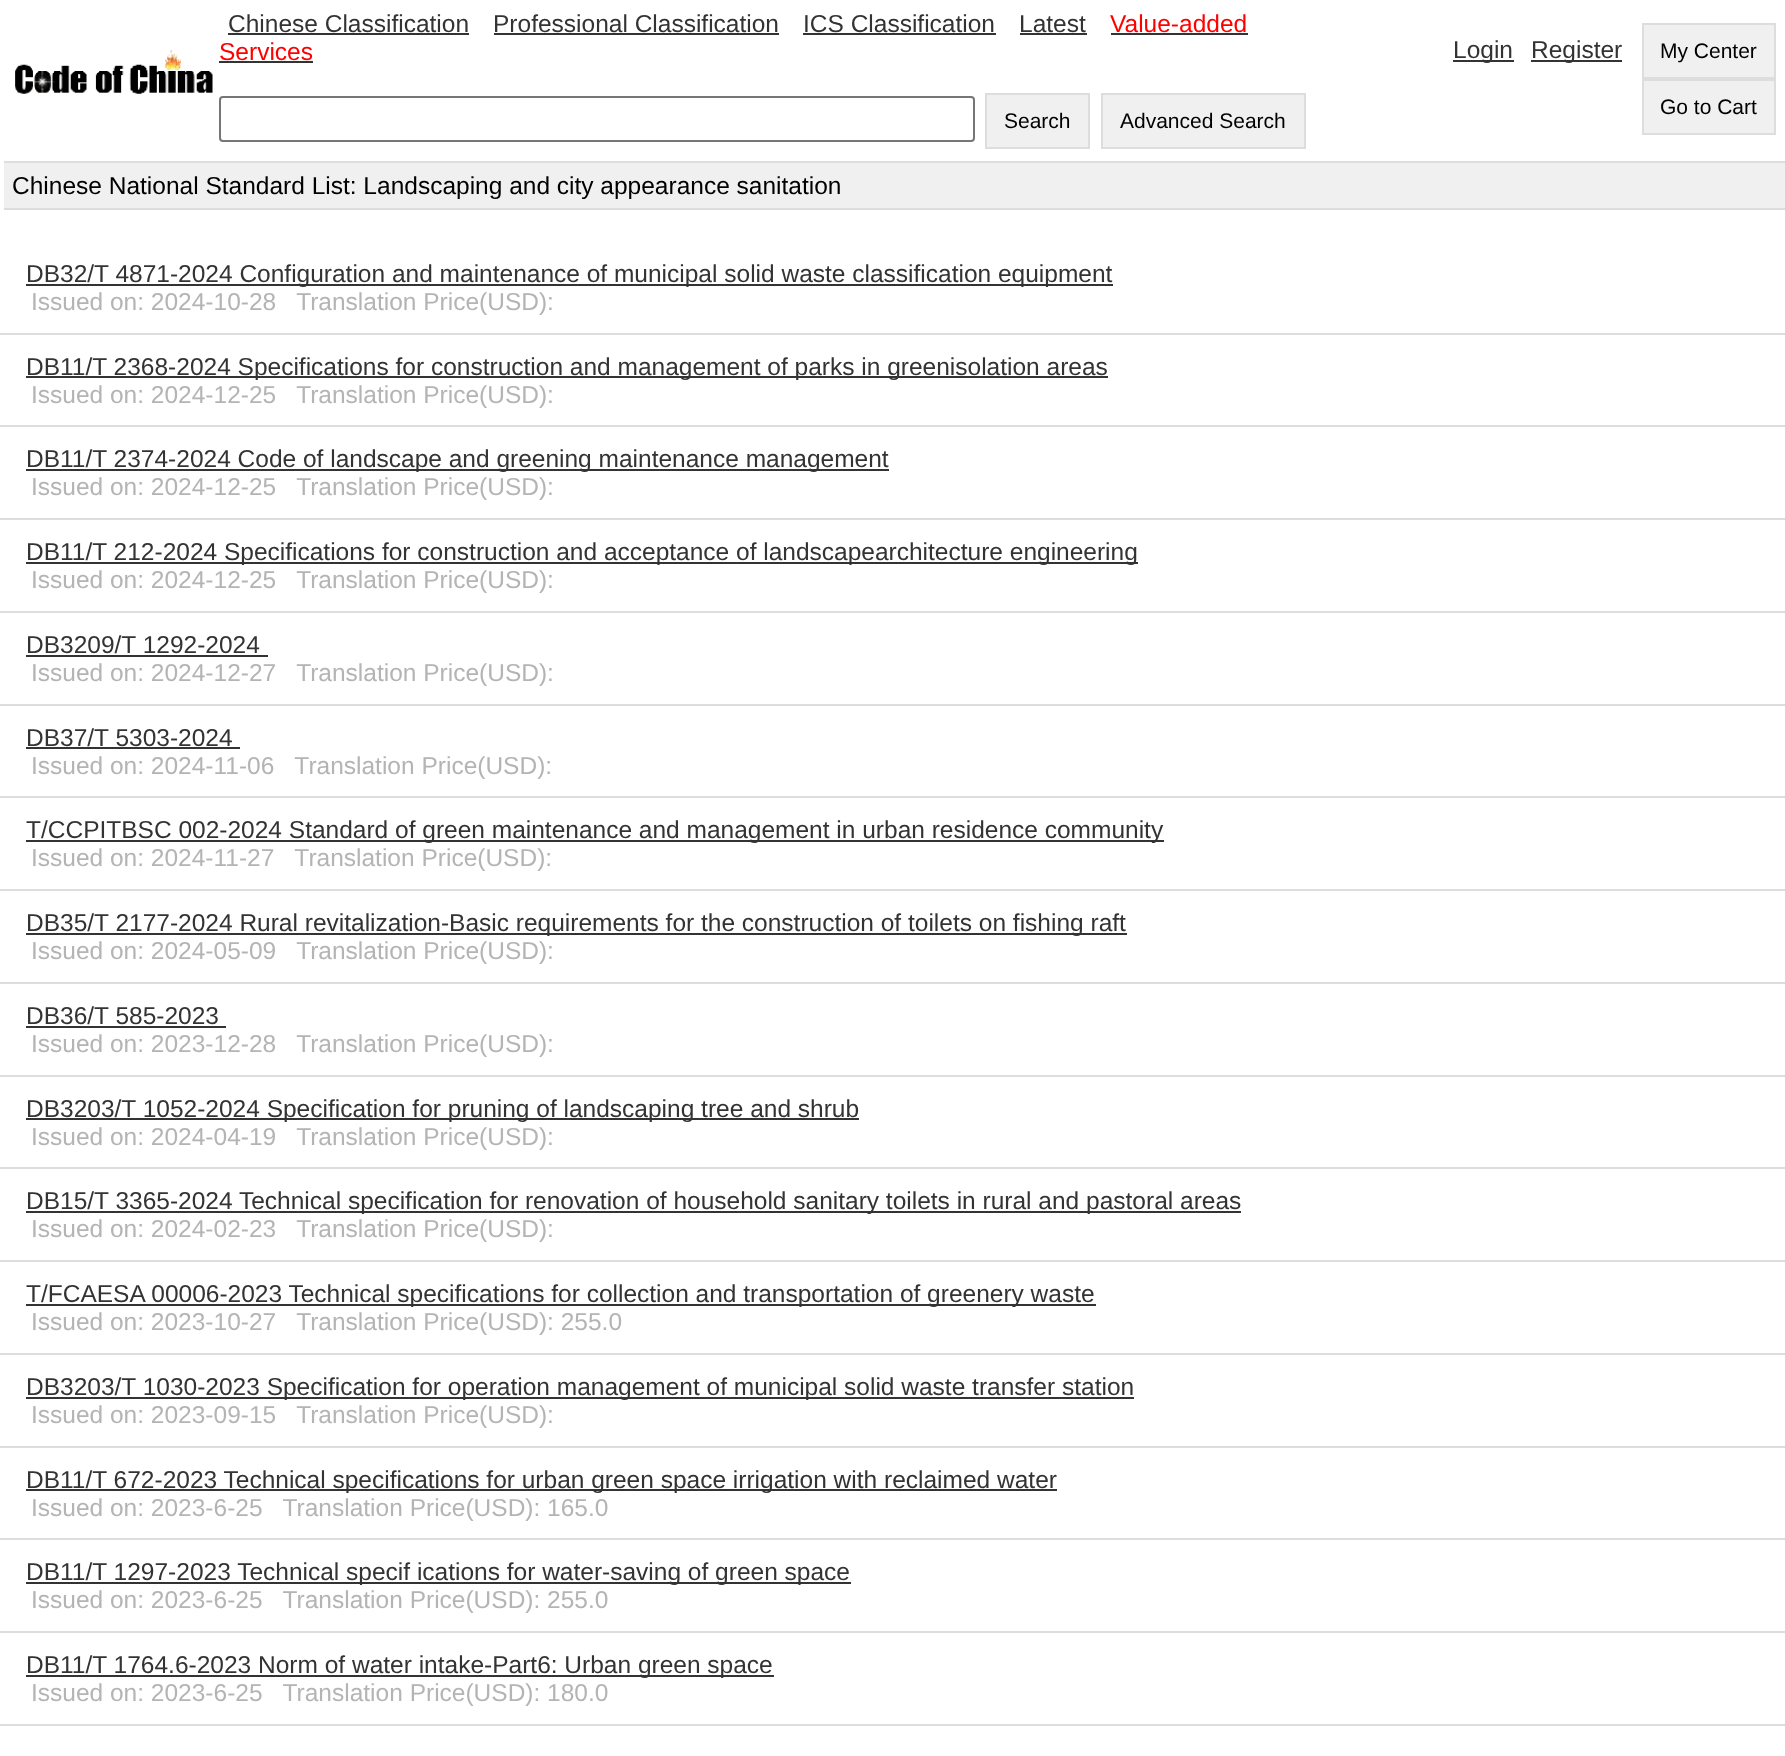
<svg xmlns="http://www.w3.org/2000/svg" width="1785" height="1756">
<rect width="100%" height="100%" fill="#fff"/>
<image x="15" y="49" width="198" height="45" href="media/1.png"/>
<text x="228" y="32" style="font-family:Liberation Sans;font-size:24.5px;fill:#333">Chinese Classification</text>
<rect x="228" y="33" width="241" height="2" fill="#333"/>
<text x="493" y="32" style="font-family:Liberation Sans;font-size:24.5px;fill:#333">Professional Classification</text>
<rect x="494" y="33" width="285" height="2" fill="#333"/>
<text x="803" y="32" style="font-family:Liberation Sans;font-size:24.5px;fill:#333">ICS Classification</text>
<rect x="803" y="33" width="193" height="2" fill="#333"/>
<text x="1019" y="32" style="font-family:Liberation Sans;font-size:24.5px;fill:#333">Latest</text>
<rect x="1020" y="33" width="67" height="2" fill="#333"/>
<text x="1110" y="32" style="font-family:Liberation Sans;font-size:24.5px;fill:#f00">Value-added</text>
<rect x="1111" y="33" width="137" height="2" fill="#333"/>
<text x="219" y="60" style="font-family:Liberation Sans;font-size:24.5px;fill:#f00">Services</text>
<rect x="219" y="61" width="94" height="2" fill="#333"/>
<rect x="220" y="97" width="754" height="44" rx="3" fill="none" stroke="#767676" stroke-width="2"/>
<rect x="986" y="94" width="103" height="54" fill="#f0f0f0" stroke="#ddd" stroke-width="2"/>
<text x="1004" y="128" style="font-family:Liberation Sans;font-size:21px;fill:#000">Search</text>
<rect x="1102" y="94" width="203" height="54" fill="#f0f0f0" stroke="#ddd" stroke-width="2"/>
<text x="1120" y="128" style="font-family:Liberation Sans;font-size:21px;fill:#000">Advanced Search</text>
<rect x="1453" y="60" width="61" height="2" fill="#333"/>
<text x="1453" y="58" style="font-family:Liberation Sans;font-size:24.5px;fill:#333">Login</text>
<rect x="1531" y="60" width="91" height="2" fill="#333"/>
<text x="1531" y="58" style="font-family:Liberation Sans;font-size:24.5px;fill:#333">Register</text>
<rect x="1643" y="24" width="132" height="54" fill="#f0f0f0" stroke="#ddd" stroke-width="2"/>
<text x="1660" y="58" style="font-family:Liberation Sans;font-size:21px;fill:#000">My Center</text>
<rect x="1643" y="80" width="132" height="54" fill="#f0f0f0" stroke="#ddd" stroke-width="2"/>
<text x="1660" y="114" style="font-family:Liberation Sans;font-size:21px;fill:#000">Go to Cart</text>
<rect x="4" y="163" width="1781" height="45" fill="#f0f0f0"/>
<rect x="4" y="161" width="1781" height="2" fill="#ddd"/>
<rect x="4" y="208" width="1781" height="2" fill="#ddd"/>
<text x="12" y="194" style="font-family:Liberation Sans;font-size:24.5px;fill:#000">Chinese National Standard List: Landscaping and city appearance sanitation</text>
<rect y="333" width="1785" height="2" fill="#ddd"/>
<rect x="26" y="284" width="1087" height="2" fill="#333"/>
<text x="26" y="282" style="font-family:Liberation Sans;font-size:24.5px;fill:#333">DB32/T 4871-2024 Configuration and maintenance of municipal solid waste classification equipment</text>
<text x="31" y="310" style="font-family:Liberation Sans;font-size:24.5px;fill:#b4b4b4" xml:space="preserve">Issued on: 2024-10-28   Translation Price(USD):</text>
<rect y="425" width="1785" height="2" fill="#ddd"/>
<rect x="26" y="376" width="1082" height="2" fill="#333"/>
<text x="26" y="375" style="font-family:Liberation Sans;font-size:24.5px;fill:#333">DB11/T 2368-2024 Specifications for construction and management of parks in greenisolation areas</text>
<text x="31" y="403" style="font-family:Liberation Sans;font-size:24.5px;fill:#b4b4b4" xml:space="preserve">Issued on: 2024-12-25   Translation Price(USD):</text>
<rect y="518" width="1785" height="2" fill="#ddd"/>
<rect x="26" y="469" width="863" height="2" fill="#333"/>
<text x="26" y="467" style="font-family:Liberation Sans;font-size:24.5px;fill:#333">DB11/T 2374-2024 Code of landscape and greening maintenance management</text>
<text x="31" y="495" style="font-family:Liberation Sans;font-size:24.5px;fill:#b4b4b4" xml:space="preserve">Issued on: 2024-12-25   Translation Price(USD):</text>
<rect y="611" width="1785" height="2" fill="#ddd"/>
<rect x="26" y="562" width="1112" height="2" fill="#333"/>
<text x="26" y="560" style="font-family:Liberation Sans;font-size:24.5px;fill:#333">DB11/T 212-2024 Specifications for construction and acceptance of landscapearchitecture engineering</text>
<text x="31" y="588" style="font-family:Liberation Sans;font-size:24.5px;fill:#b4b4b4" xml:space="preserve">Issued on: 2024-12-25   Translation Price(USD):</text>
<rect y="704" width="1785" height="2" fill="#ddd"/>
<text x="26" y="653" style="font-family:Liberation Sans;font-size:24.5px;fill:#333">DB3209/T 1292-2024</text>
<rect x="26" y="655" width="242" height="2" fill="#333"/>
<text x="31" y="681" style="font-family:Liberation Sans;font-size:24.5px;fill:#b4b4b4" xml:space="preserve">Issued on: 2024-12-27   Translation Price(USD):</text>
<rect y="796" width="1785" height="2" fill="#ddd"/>
<text x="26" y="746" style="font-family:Liberation Sans;font-size:24.5px;fill:#333">DB37/T 5303-2024</text>
<rect x="26" y="747" width="214" height="2" fill="#333"/>
<text x="31" y="774" style="font-family:Liberation Sans;font-size:24.5px;fill:#b4b4b4" xml:space="preserve">Issued on: 2024-11-06   Translation Price(USD):</text>
<rect y="889" width="1785" height="2" fill="#ddd"/>
<rect x="26" y="840" width="1138" height="2" fill="#333"/>
<text x="26" y="838" style="font-family:Liberation Sans;font-size:24.5px;fill:#333">T/CCPITBSC 002-2024 Standard of green maintenance and management in urban residence community</text>
<text x="31" y="866" style="font-family:Liberation Sans;font-size:24.5px;fill:#b4b4b4" xml:space="preserve">Issued on: 2024-11-27   Translation Price(USD):</text>
<rect y="982" width="1785" height="2" fill="#ddd"/>
<rect x="26" y="933" width="1101" height="2" fill="#333"/>
<text x="26" y="931" style="font-family:Liberation Sans;font-size:24.5px;fill:#333">DB35/T 2177-2024 Rural revitalization-Basic requirements for the construction of toilets on fishing raft</text>
<text x="31" y="959" style="font-family:Liberation Sans;font-size:24.5px;fill:#b4b4b4" xml:space="preserve">Issued on: 2024-05-09   Translation Price(USD):</text>
<rect y="1075" width="1785" height="2" fill="#ddd"/>
<text x="26" y="1024" style="font-family:Liberation Sans;font-size:24.5px;fill:#333">DB36/T 585-2023</text>
<rect x="26" y="1026" width="200" height="2" fill="#333"/>
<text x="31" y="1052" style="font-family:Liberation Sans;font-size:24.5px;fill:#b4b4b4" xml:space="preserve">Issued on: 2023-12-28   Translation Price(USD):</text>
<rect y="1167" width="1785" height="2" fill="#ddd"/>
<rect x="26" y="1118" width="833" height="2" fill="#333"/>
<text x="26" y="1117" style="font-family:Liberation Sans;font-size:24.5px;fill:#333">DB3203/T 1052-2024 Specification for pruning of landscaping tree and shrub</text>
<text x="31" y="1145" style="font-family:Liberation Sans;font-size:24.5px;fill:#b4b4b4" xml:space="preserve">Issued on: 2024-04-19   Translation Price(USD):</text>
<rect y="1260" width="1785" height="2" fill="#ddd"/>
<rect x="26" y="1211" width="1215" height="2" fill="#333"/>
<text x="26" y="1209" style="font-family:Liberation Sans;font-size:24.5px;fill:#333">DB15/T 3365-2024 Technical specification for renovation of household sanitary toilets in rural and pastoral areas</text>
<text x="31" y="1237" style="font-family:Liberation Sans;font-size:24.5px;fill:#b4b4b4" xml:space="preserve">Issued on: 2024-02-23   Translation Price(USD):</text>
<rect y="1353" width="1785" height="2" fill="#ddd"/>
<rect x="26" y="1304" width="1070" height="2" fill="#333"/>
<text x="26" y="1302" style="font-family:Liberation Sans;font-size:24.5px;fill:#333">T/FCAESA 00006-2023 Technical specifications for collection and transportation of greenery waste</text>
<text x="31" y="1330" style="font-family:Liberation Sans;font-size:24.5px;fill:#b4b4b4" xml:space="preserve">Issued on: 2023-10-27   Translation Price(USD): 255.0</text>
<rect y="1446" width="1785" height="2" fill="#ddd"/>
<rect x="26" y="1397" width="1108" height="2" fill="#333"/>
<text x="26" y="1395" style="font-family:Liberation Sans;font-size:24.5px;fill:#333">DB3203/T 1030-2023 Specification for operation management of municipal solid waste transfer station</text>
<text x="31" y="1423" style="font-family:Liberation Sans;font-size:24.5px;fill:#b4b4b4" xml:space="preserve">Issued on: 2023-09-15   Translation Price(USD):</text>
<rect y="1538" width="1785" height="2" fill="#ddd"/>
<rect x="26" y="1489" width="1031" height="2" fill="#333"/>
<text x="26" y="1488" style="font-family:Liberation Sans;font-size:24.5px;fill:#333">DB11/T 672-2023 Technical specifications for urban green space irrigation with reclaimed water</text>
<text x="31" y="1516" style="font-family:Liberation Sans;font-size:24.5px;fill:#b4b4b4" xml:space="preserve">Issued on: 2023-6-25   Translation Price(USD): 165.0</text>
<rect y="1631" width="1785" height="2" fill="#ddd"/>
<rect x="26" y="1582" width="825" height="2" fill="#333"/>
<text x="26" y="1580" style="font-family:Liberation Sans;font-size:24.5px;fill:#333">DB11/T 1297-2023 Technical specif ications for water-saving of green space</text>
<text x="31" y="1608" style="font-family:Liberation Sans;font-size:24.5px;fill:#b4b4b4" xml:space="preserve">Issued on: 2023-6-25   Translation Price(USD): 255.0</text>
<rect y="1724" width="1785" height="2" fill="#ddd"/>
<rect x="26" y="1675" width="748" height="2" fill="#333"/>
<text x="26" y="1673" style="font-family:Liberation Sans;font-size:24.5px;fill:#333">DB11/T 1764.6-2023 Norm of water intake-Part6: Urban green space</text>
<text x="31" y="1701" style="font-family:Liberation Sans;font-size:24.5px;fill:#b4b4b4" xml:space="preserve">Issued on: 2023-6-25   Translation Price(USD): 180.0</text>
</svg>
